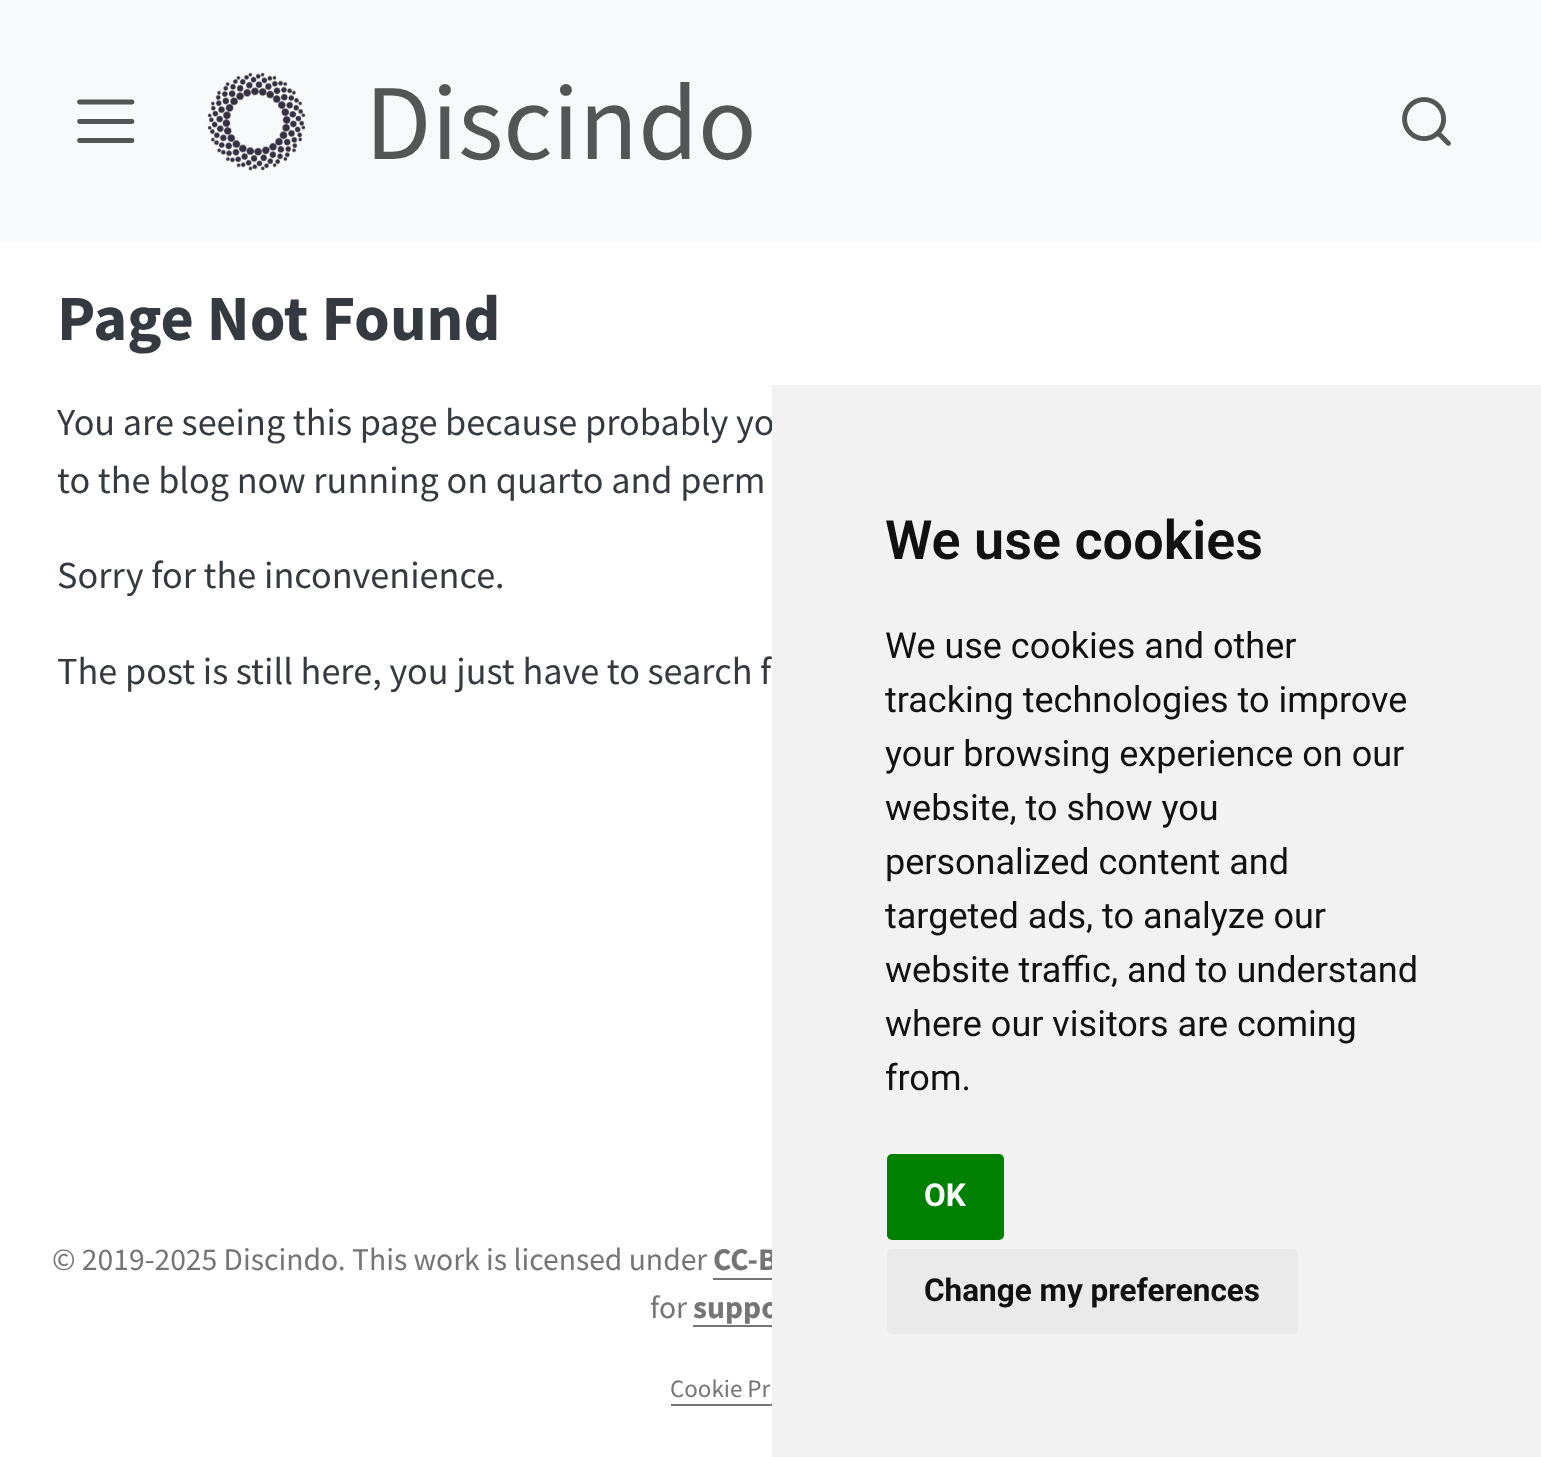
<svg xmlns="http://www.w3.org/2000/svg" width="1541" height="1457">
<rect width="100%" height="100%" fill="#fff"/>
<rect width="1541" height="243" fill="#f8f9fa"/>
<path d="M79.5 102h52.5m-52.5 19.5h52.5m-52.5 19h52.5" fill="none" stroke="#545555" stroke-width="4.8" stroke-linecap="round"/>
<image x="207" y="72" width="99" height="99" href="media/1.png"/>
<text x="365" y="159" style="font-family:Source Sans Pro;font-size:108px;fill:#545555">Discindo</text>
<image x="1402" y="97" width="49" height="49" href="media/2.png"/>
<text x="57" y="340" style="font-family:Source Sans Pro;font-size:64.5px;font-weight:bold;fill:#343a40">Page Not Found</text>
<text x="57" y="435" style="font-family:Source Sans Pro;font-size:38.25px;fill:#343a40">You are seeing this page because probably yo</text>
<text x="57" y="493" style="font-family:Source Sans Pro;font-size:38.25px;fill:#343a40">to the blog now running on quarto and perm</text>
<text x="57" y="588" style="font-family:Source Sans Pro;font-size:38.25px;fill:#343a40">Sorry for the inconvenience.</text>
<text x="57" y="684" style="font-family:Source Sans Pro;font-size:38.25px;fill:#343a40">The post is still here, you just have to search f</text>
<text x="713" y="1270" style="font-family:Source Sans Pro;font-size:31.6px;font-weight:bold;fill:#757575">CC-B</text>
<text x="693" y="1318" style="font-family:Source Sans Pro;font-size:31.6px;font-weight:bold;fill:#757575">suppo</text>
<rect x="772" y="385" width="769" height="1072" fill="#f2f2f2"/>
<text x="885" y="559" style="font-family:Roboto;font-size:54px;font-weight:600;fill:#111">We use cookies</text>
<text x="885" y="658" style="font-family:Roboto;font-size:36px;fill:#111">We use cookies and other</text>
<text x="885" y="712" style="font-family:Roboto;font-size:36px;fill:#111">tracking technologies to improve</text>
<text x="885" y="766" style="font-family:Roboto;font-size:36px;fill:#111">your browsing experience on our</text>
<text x="885" y="820" style="font-family:Roboto;font-size:36px;fill:#111">website, to show you</text>
<text x="885" y="874" style="font-family:Roboto;font-size:36px;fill:#111">personalized content and</text>
<text x="885" y="928" style="font-family:Roboto;font-size:36px;fill:#111">targeted ads, to analyze our</text>
<text x="885" y="982" style="font-family:Roboto;font-size:36px;fill:#111">website traffic, and to understand</text>
<text x="885" y="1036" style="font-family:Roboto;font-size:36px;fill:#111">where our visitors are coming</text>
<text x="885" y="1090" style="font-family:Roboto;font-size:36px;fill:#111">from.</text>
<rect x="887" y="1154" width="117" height="86" rx="5" fill="#008000"/>
<text x="924" y="1206" style="font-family:Roboto;font-size:31.5px;font-weight:bold;fill:#fff">OK</text>
<rect x="887" y="1249" width="411" height="85" rx="5" fill="#eaeaea"/>
<text x="924" y="1301" style="font-family:Roboto;font-size:31.5px;font-weight:bold;fill:#111">Change my preferences</text>
<text x="52" y="1270" style="font-family:Source Sans Pro;font-size:31.6px;fill:#757575">© 2019-2025 Discindo. This work is licensed under</text>
<rect x="713" y="1278" width="59" height="2" fill="#757575"/>
<text x="650" y="1318" style="font-family:Source Sans Pro;font-size:31.6px;fill:#757575">for</text>
<rect x="693" y="1325" width="79" height="2" fill="#757575"/>
<text x="670" y="1397" style="font-family:Source Sans Pro;font-size:25px;fill:#757575">Cookie Pr</text>
<rect x="671" y="1404" width="101" height="2" fill="#757575"/>
</svg>
